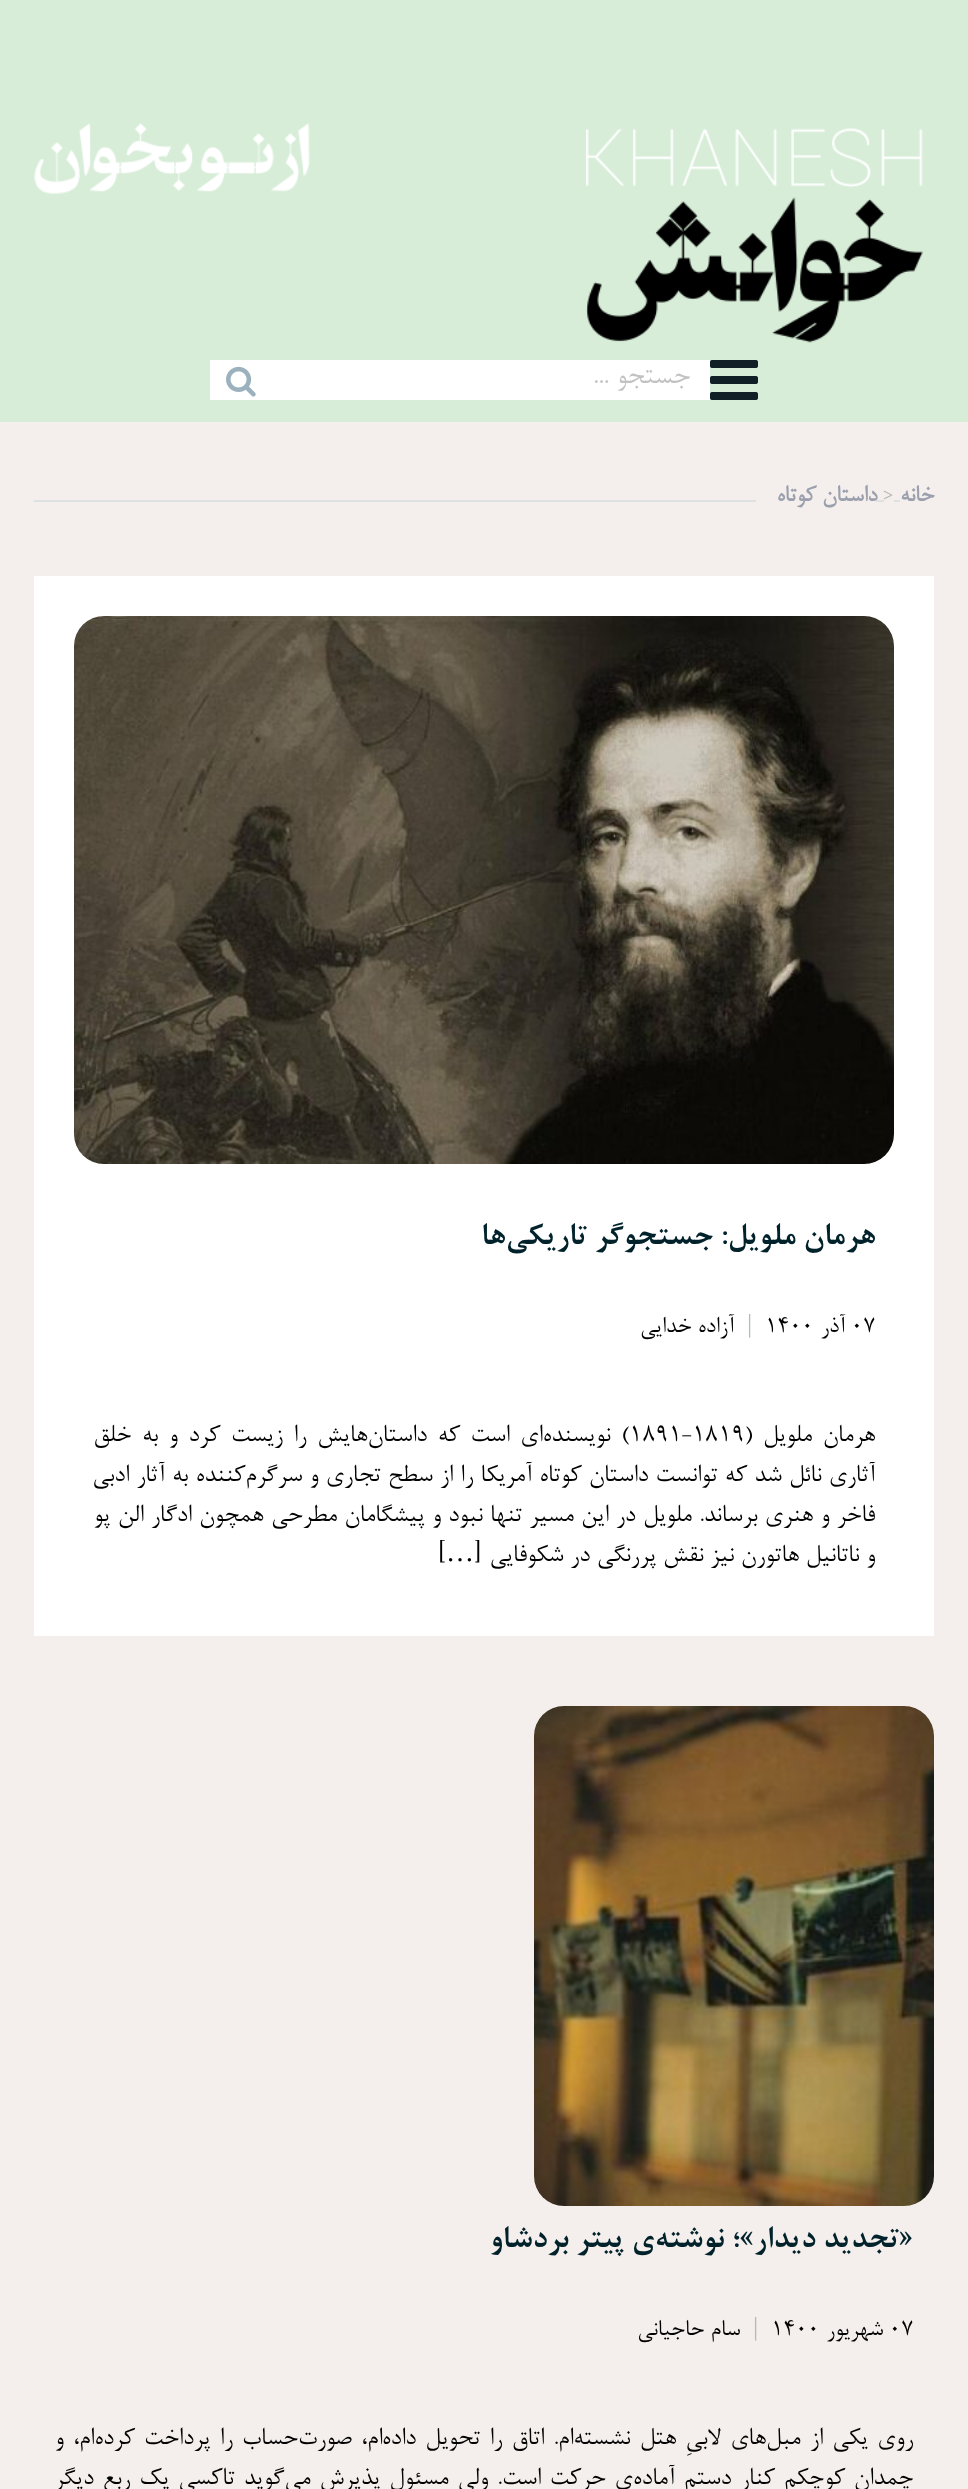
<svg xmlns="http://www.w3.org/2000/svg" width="968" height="2489">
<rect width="100%" height="100%" fill="#f4efec"/>
<rect width="968" height="422" fill="#d7edd8"/>
<image x="34" y="123" width="889" height="220" href="media/1.png"/>
<image x="710" y="360" width="48" height="40" href="media/2.png"/>
<rect x="210" y="360" width="500" height="40" fill="#fff"/>
<text x="690" y="383" style="font-family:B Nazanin;font-size:32px;direction:rtl;fill:#c2c2c2">جستجو ...</text>
<image x="226" y="366" width="30" height="31" href="media/3.png"/>
<text x="934" y="501" style="font-family:B Nazanin;font-size:26px;font-weight:bold;direction:rtl;fill:#9ca0ae">خانه</text>
<text x="883" y="501" style="font-family:Liberation Serif;font-size:18px;font-weight:bold;fill:#b6b8b9">&gt;</text>
<rect x="34" y="500" width="866" height="2" fill="#dee0e1"/>
<rect x="884" y="500" width="10" height="2" fill="#f4efec"/>
<rect x="756" y="500" width="120" height="2" fill="#f4efec"/>
<text x="877" y="501" style="font-family:B Nazanin;font-size:26px;font-weight:bold;direction:rtl;fill:#9ca0ae">داستان کوتاه</text>
<rect x="34" y="576" width="900" height="1060" fill="#fff"/>
<image x="74" y="616" width="820" height="548" href="media/4.png"/>
<text x="875" y="1244" style="font-family:'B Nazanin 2';font-size:34px;font-weight:bold;direction:rtl;fill:#01222b">هرمان ملویل: جستجوگر تاریکی‌ها</text>
<text x="851" y="1332" style="font-family:B Nazanin;font-size:26px;fill:#000">۰۷</text>
<text x="845" y="1332" style="font-family:B Nazanin;font-size:26px;direction:rtl;fill:#000">آذر</text>
<text x="765" y="1332" style="font-family:B Nazanin;font-size:26px;fill:#000">۱۴۰۰</text>
<text x="747" y="1332" style="font-family:Liberation Serif;font-size:26px;fill:#b6b8b9">|</text>
<text x="734" y="1332" style="font-family:B Nazanin;font-size:26px;direction:rtl;fill:#000">آزاده خدایی</text>
<text x="875" y="1441" word-spacing="3.9" style="font-family:B Nazanin;font-size:28px;direction:rtl;fill:#000">هرمان ملویل (</text>
<text x="629" y="1441" style="font-family:B Nazanin;font-size:28px;fill:#000">۱۸۹۱-۱۸۱۹</text>
<text x="629" y="1441" word-spacing="3.9" style="font-family:B Nazanin;font-size:28px;direction:rtl;fill:#000">) نویسنده‌ای است که داستان‌هایش را زیست کرد و به خلق</text>
<text x="875" y="1481" word-spacing="0.5" style="font-family:B Nazanin;font-size:28px;direction:rtl;fill:#000">آثاری نائل شد که توانست داستان کوتاه آمریکا را از سطح تجاری و سرگرم‌کننده به آثار ادبی</text>
<text x="875" y="1521" word-spacing="0.5" style="font-family:B Nazanin;font-size:28px;direction:rtl;fill:#000">فاخر و هنری برساند. ملویل در این مسیر تنها نبود و پیشگامان مطرحی همچون ادگار الن پو</text>
<text x="875" y="1561" style="font-family:B Nazanin;font-size:28px;direction:rtl;fill:#000">و ناتانیل هاتورن نیز نقش پررنگی در شکوفایی [</text>
<text x="474" y="1561" style="font-family:Liberation Serif;font-size:28px;direction:rtl;fill:#000">…</text>
<text x="446" y="1561" style="font-family:B Nazanin;font-size:28px;direction:rtl;fill:#000">]</text>
<image x="534" y="1706" width="400" height="500" href="media/5.png"/>
<text x="913" y="2247" style="font-family:'B Nazanin 2';font-size:34px;font-weight:bold;direction:rtl;fill:#01222b">«تجدید دیدار»؛ نوشته‌ی پیتر بردشاو</text>
<text x="889" y="2335" style="font-family:B Nazanin;font-size:26px;fill:#000">۰۷</text>
<text x="883" y="2335" style="font-family:B Nazanin;font-size:26px;direction:rtl;fill:#000">شهریور</text>
<text x="771" y="2335" style="font-family:B Nazanin;font-size:26px;fill:#000">۱۴۰۰</text>
<text x="753" y="2335" style="font-family:Liberation Serif;font-size:26px;fill:#b6b8b9">|</text>
<text x="740" y="2335" style="font-family:B Nazanin;font-size:26px;direction:rtl;fill:#000">سام حاجیانی</text>
<text x="913" y="2444" word-spacing="2.5" style="font-family:B Nazanin;font-size:28px;direction:rtl;fill:#000">روی یکی از مبل‌های لابیِ هتل نشسته‌ام. اتاق را تحویل داده</text>
<text x="382" y="2444" word-spacing="2.5" style="font-family:B Nazanin;font-size:28px;direction:rtl;fill:#000">‌ام، صورت‌حساب را پرداخت کرده‌ام، و</text>
<text x="913" y="2484" word-spacing="2.1" style="font-family:B Nazanin;font-size:28px;direction:rtl;fill:#000">چمدانِ کوچکم کنار دستم آماده‌ی حرکت است. ولی مسئولِ پذیرش می‌گوید تاکسی یک ربع دیگر</text>
</svg>
